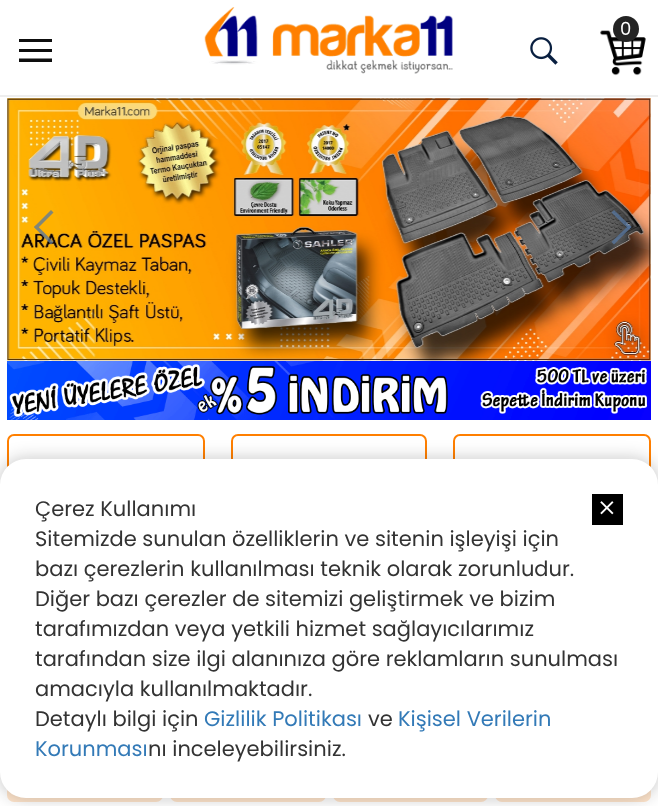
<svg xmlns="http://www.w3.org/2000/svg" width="658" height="806">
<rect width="100%" height="100%" fill="#fff"/>
<rect y="95" width="658" height="2" fill="#eee"/>
<image x="204" y="7" width="249" height="67" href="media/1.png"/>
<image x="600" y="30" width="46" height="46" href="media/2.png"/>
<circle cx="626" cy="29" r="13" fill="#232323"/>
<text x="620" y="35" style="font-family:Poppins;font-size:18px;fill:#fff">0</text>
<image x="530" y="37" width="28" height="28" href="media/3.png"/>
<path d="M19 52v-3h33v3zm0-10v-3h33v3zm0 20v-3.5h33v3.5z" fill="#0e0e0e"/>
<image x="7" y="98" width="644" height="263" href="media/4.png"/>
<image x="650" y="98" width="1" height="263" href="media/5.png"/>
<path d="M53.5 242l-2.5 2.5l-17-17.5l2.5-2z" fill="#5777a0bf"/>
<path d="M53.5 212.5l-17 17l-2.5-2.5l17-17z" fill="#818678"/>
<path d="M611.5 212.5l2.5-2.5l17.5 17l-2.5 2.5z" fill="#5777a0bf"/>
<path d="M611.5 242l17.5-17l2.5 2l-17.5 17.5z" fill="#5777a0bf"/>
<image x="7" y="361" width="644" height="59" href="media/6.png"/>
<rect x="8" y="435" width="196" height="54" rx="6" fill="none" stroke="#ff7f00" stroke-width="2"/>
<rect x="232" y="435" width="194" height="54" rx="6" fill="none" stroke="#ff7f00" stroke-width="2"/>
<rect x="454" y="435" width="196" height="54" rx="6" fill="none" stroke="#ff7f00" stroke-width="2"/>
<rect x="7" y="504" width="156" height="298" rx="7" fill="#ffe5cc"/>
<rect x="170" y="504" width="156" height="298" rx="7" fill="#ffe5cc"/>
<rect x="333" y="504" width="155" height="298" rx="7" fill="#ffe5cc"/>
<rect x="495" y="504" width="156" height="298" rx="7" fill="#ffe5cc"/>
<rect x="-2" y="457" width="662" height="343" rx="28" fill="#0e0e0e33" filter="blur(8px)"/>
<rect y="459" width="658" height="339" rx="26" fill="#fff"/>
<text x="35" y="516" style="font-family:Poppins;font-size:21px;fill:#333">Çerez Kullanımı</text>
<rect x="592" y="494" width="31" height="31" fill="#000"/>
<image x="600" y="501" width="14" height="14" href="media/7.png"/>
<text x="35" y="546" style="font-family:Poppins;font-size:21px;fill:#333">Sitemizde sunulan özelliklerin ve sitenin işleyişi için</text>
<text x="35" y="576" style="font-family:Poppins;font-size:21px;fill:#333">bazı çerezlerin kullanılması teknik olarak zorunludur.</text>
<text x="35" y="606" style="font-family:Poppins;font-size:21px;fill:#333">Diğer bazı çerezler de sitemizi geliştirmek ve bizim</text>
<text x="35" y="636" style="font-family:Poppins;font-size:21px;fill:#333">tarafımızdan veya yetkili hizmet sağlayıcılarımız</text>
<text x="35" y="666" style="font-family:Poppins;font-size:21px;fill:#333">tarafından size ilgi alanınıza göre reklamların sunulması</text>
<text x="35" y="696" style="font-family:Poppins;font-size:21px;fill:#333">amacıyla kullanılmaktadır.</text>
<text x="35" y="726" style="font-family:Poppins;font-size:21px;fill:#333">Detaylı bilgi için</text>
<text x="204" y="726" style="font-family:Poppins;font-size:21px;fill:#337ab7">Gizlilik Politikası</text>
<text x="368" y="726" style="font-family:Poppins;font-size:21px;fill:#333">ve</text>
<text x="398" y="726" style="font-family:Poppins;font-size:21px;fill:#337ab7">Kişisel Verilerin</text>
<text x="35" y="756" style="font-family:Poppins;font-size:21px;fill:#337ab7">Korunması</text>
<text x="148" y="756" style="font-family:Poppins;font-size:21px;fill:#333">nı inceleyebilirsiniz.</text>
</svg>
